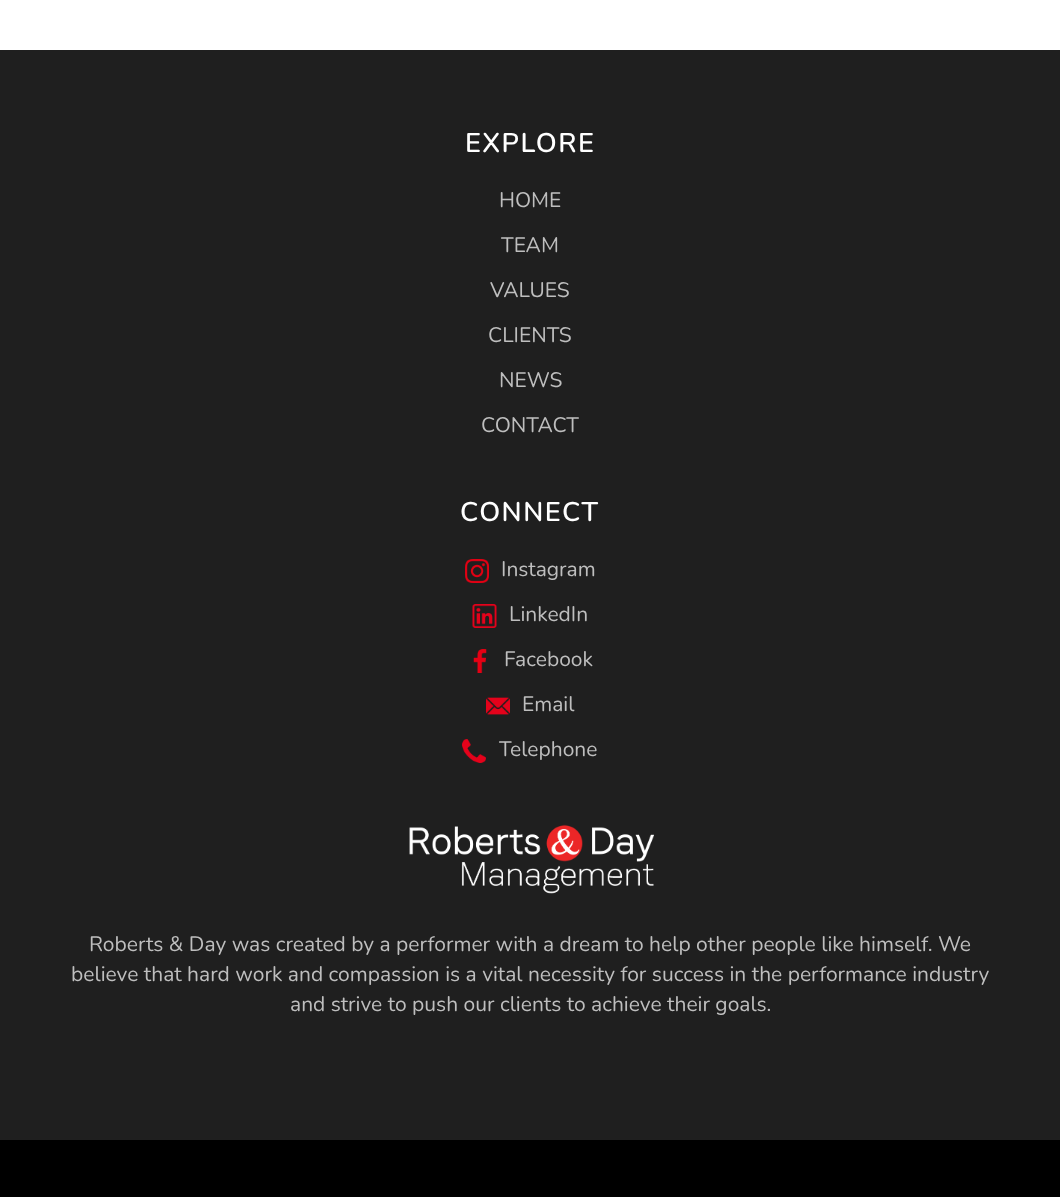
<svg xmlns="http://www.w3.org/2000/svg" width="1060" height="1197">
<rect width="100%" height="100%" fill="#fff"/>
<rect y="50" width="1060" height="1090" fill="#1f1f1f"/>
<text x="465" y="152" style="font-family:Nunito;font-size:27px;font-weight:600;letter-spacing:1.5px;fill:#fff">EXPLORE</text>
<text x="499" y="207" style="font-family:Nunito;font-size:21px;fill:#bebebe">HOME</text>
<text x="501" y="252" style="font-family:Nunito;font-size:21px;fill:#bebebe">TEAM</text>
<text x="490" y="297" style="font-family:Nunito;font-size:21px;fill:#bebebe">VALUES</text>
<text x="488" y="342" style="font-family:Nunito;font-size:21px;fill:#bebebe">CLIENTS</text>
<text x="499" y="387" style="font-family:Nunito;font-size:21px;fill:#bebebe">NEWS</text>
<text x="481" y="432" style="font-family:Nunito;font-size:21px;fill:#bebebe">CONTACT</text>
<text x="460" y="521" style="font-family:Nunito;font-size:27px;font-weight:600;letter-spacing:1.5px;fill:#fff">CONNECT</text>
<image x="465" y="559" width="24" height="24" href="media/1.png"/>
<text x="501" y="576" style="font-family:Nunito;font-size:21px;fill:#bebebe">Instagram</text>
<image x="472" y="604" width="25" height="24" href="media/2.png"/>
<text x="509" y="621" style="font-family:Nunito;font-size:21px;fill:#bebebe">LinkedIn</text>
<image x="473" y="649" width="14" height="24" href="media/3.png"/>
<text x="504" y="666" style="font-family:Nunito;font-size:21px;fill:#bebebe">Facebook</text>
<image x="486" y="697" width="24" height="18" href="media/4.png"/>
<text x="522" y="711" style="font-family:Nunito;font-size:21px;fill:#bebebe">Email</text>
<image x="462" y="739" width="24" height="24" href="media/5.png"/>
<text x="499" y="756" style="font-family:Nunito;font-size:21px;fill:#bebebe">Telephone</text>
<image x="409" y="824" width="245" height="70" href="media/6.png"/>
<text x="89" y="951" style="font-family:Nunito;font-size:21px;fill:#bebebe">Roberts &amp; Day was created by a performer with a dream to help other people like himself. We</text>
<text x="71" y="981" style="font-family:Nunito;font-size:21px;fill:#bebebe">believe that hard work and compassion is a vital necessity for success in the performance industry</text>
<text x="290" y="1011" style="font-family:Nunito;font-size:21px;fill:#bebebe">and strive to push our clients to achieve their goals.</text>
<rect y="1140" width="1060" height="57" fill="#000"/>
</svg>
